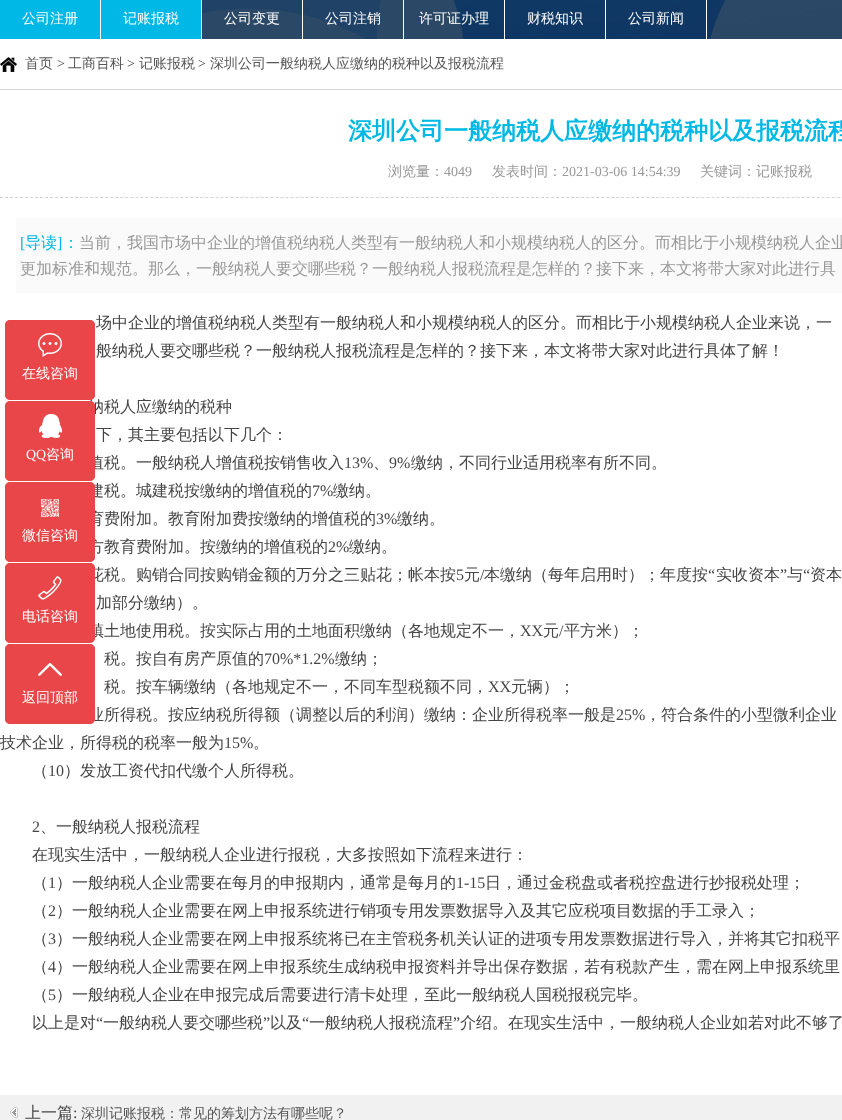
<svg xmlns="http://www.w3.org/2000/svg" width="842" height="1120">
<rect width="100%" height="100%" fill="#fff"/>
<image x="202" y="0" width="640" height="39" href="media/1.png"/>
<rect width="100" height="39" fill="#00b8e5"/>
<text x="22" y="23" style="font-family:WenQuanYi Zen Hei;font-size:14px;font-weight:500;fill:#fff">公司注册</text>
<rect x="101" width="100" height="39" fill="#00b8e5"/>
<text x="123" y="23" style="font-family:WenQuanYi Zen Hei;font-size:14px;font-weight:500;fill:#fff">记账报税</text>
<rect x="302" width="1" height="39" fill="#fff"/>
<text x="224" y="23" style="font-family:WenQuanYi Zen Hei;font-size:14px;font-weight:500;fill:#fff">公司变更</text>
<rect x="403" width="1" height="39" fill="#fff"/>
<text x="325" y="23" style="font-family:WenQuanYi Zen Hei;font-size:14px;font-weight:500;fill:#fff">公司注销</text>
<rect x="504" width="1" height="39" fill="#fff"/>
<text x="419" y="23" style="font-family:WenQuanYi Zen Hei;font-size:14px;font-weight:500;fill:#fff">许可证办理</text>
<rect x="605" width="1" height="39" fill="#fff"/>
<text x="527" y="23" style="font-family:WenQuanYi Zen Hei;font-size:14px;font-weight:500;fill:#fff">财税知识</text>
<rect x="706" width="1" height="39" fill="#fff"/>
<text x="628" y="23" style="font-family:WenQuanYi Zen Hei;font-size:14px;font-weight:500;fill:#fff">公司新闻</text>
<rect y="89" width="842" height="1" fill="#d6d6d6"/>
<image x="0" y="57" width="17" height="15" href="media/2.png"/>
<text x="25" y="68" style="font-family:WenQuanYi Zen Hei;font-size:14px;font-weight:500;fill:#565656">首页</text>
<text x="57" y="68" style="font-family:Liberation Serif;font-size:14px;fill:#454545">&gt;</text>
<text x="68" y="68" style="font-family:WenQuanYi Zen Hei;font-size:14px;font-weight:500;fill:#565656">工商百科</text>
<text x="127" y="68" style="font-family:Liberation Serif;font-size:14px;fill:#454545">&gt;</text>
<text x="139" y="68" style="font-family:WenQuanYi Zen Hei;font-size:14px;font-weight:500;fill:#565656">记账报税</text>
<text x="198" y="68" style="font-family:Liberation Serif;font-size:14px;fill:#454545">&gt;</text>
<text x="210" y="68" style="font-family:WenQuanYi Zen Hei;font-size:14px;font-weight:500;fill:#565656">深圳公司一般纳税人应缴纳的税种以及报税流程</text>
<text x="348" y="139" style="font-family:WenQuanYi Zen Hei;font-size:24px;font-weight:bold;fill:#00b8e5">深圳公司一般纳税人应缴纳的税种以及报税流程</text>
<path d="M0 197.5h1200" fill="none" stroke="#d2d2d2" stroke-dasharray="3 2.01"/>
<text x="388" y="176" style="font-family:WenQuanYi Zen Hei;font-size:14px;font-weight:500;fill:#999">浏览量：</text>
<text x="444" y="176" style="font-family:Liberation Serif;font-size:14px;fill:#999">4049</text>
<text x="492" y="176" style="font-family:WenQuanYi Zen Hei;font-size:14px;font-weight:500;fill:#999">发表时间：</text>
<text x="562" y="176" style="font-family:Liberation Serif;font-size:14px;fill:#999">2021-03-06 14:54:39</text>
<text x="700" y="176" style="font-family:WenQuanYi Zen Hei;font-size:14px;font-weight:500;fill:#999">关键词：记账报税</text>
<rect x="16" y="218" width="826" height="75" fill="#fafafa"/>
<text x="20" y="248" style="font-family:Liberation Serif;font-size:16px;fill:#00b8e5">[</text>
<text x="25" y="248" style="font-family:WenQuanYi Zen Hei;font-size:16px;font-weight:500;fill:#00b8e5">导读</text>
<text x="57" y="248" style="font-family:Liberation Serif;font-size:16px;fill:#00b8e5">]</text>
<text x="63" y="248" style="font-family:WenQuanYi Zen Hei;font-size:16px;font-weight:500;fill:#00b8e5">：</text>
<text x="79" y="248" style="font-family:WenQuanYi Zen Hei;font-size:16px;font-weight:500;fill:#999">当前，我国市场中企业的增值税纳税人类型有一般纳税人和小规模纳税人的区分。而相比于小规模纳税人企业</text>
<text x="20" y="274" style="font-family:WenQuanYi Zen Hei;font-size:16px;font-weight:500;fill:#999">更加标准和规范。那么，一般纳税人要交哪些税？一般纳税人报税流程是怎样的？接下来，本文将带大家对此进行具</text>
<text x="96" y="328" style="font-family:WenQuanYi Zen Hei;font-size:16px;font-weight:500;fill:#454545">场中企业的增值税纳税人类型有一般纳税人和小规模纳税人的区分。而相比于小规模纳税人企业来说，一</text>
<text x="96" y="356" style="font-family:WenQuanYi Zen Hei;font-size:16px;font-weight:500;fill:#454545">般纳税人要交哪些税？一般纳税人报税流程是怎样的？接下来，本文将带大家对此进行具体了解！</text>
<text x="88" y="412" style="font-family:WenQuanYi Zen Hei;font-size:16px;font-weight:500;fill:#454545">纳税人应缴纳的税种</text>
<text x="96" y="440" style="font-family:WenQuanYi Zen Hei;font-size:16px;font-weight:500;fill:#454545">下，其主要包括以下几个：</text>
<text x="88" y="468" style="font-family:WenQuanYi Zen Hei;font-size:16px;font-weight:500;fill:#454545">值税。一般纳税人增值税按销售收入</text>
<text x="344" y="468" style="font-family:Liberation Serif;font-size:16px;fill:#454545">13%</text>
<text x="373" y="468" style="font-family:WenQuanYi Zen Hei;font-size:16px;font-weight:500;fill:#454545">、</text>
<text x="389" y="468" style="font-family:Liberation Serif;font-size:16px;fill:#454545">9%</text>
<text x="411" y="468" style="font-family:WenQuanYi Zen Hei;font-size:16px;font-weight:500;fill:#454545">缴纳，不同行业适用税率有所不同。</text>
<text x="88" y="496" style="font-family:WenQuanYi Zen Hei;font-size:16px;font-weight:500;fill:#454545">建税。城建税按缴纳的增值税的</text>
<text x="312" y="496" style="font-family:Liberation Serif;font-size:16px;fill:#454545">7%</text>
<text x="333" y="496" style="font-family:WenQuanYi Zen Hei;font-size:16px;font-weight:500;fill:#454545">缴纳。</text>
<text x="88" y="524" style="font-family:WenQuanYi Zen Hei;font-size:16px;font-weight:500;fill:#454545">育费附加。教育附加费按缴纳的增值税的</text>
<text x="376" y="524" style="font-family:Liberation Serif;font-size:16px;fill:#454545">3%</text>
<text x="397" y="524" style="font-family:WenQuanYi Zen Hei;font-size:16px;font-weight:500;fill:#454545">缴纳。</text>
<text x="88" y="552" style="font-family:WenQuanYi Zen Hei;font-size:16px;font-weight:500;fill:#454545">方教育费附加。按缴纳的增值税的</text>
<text x="328" y="552" style="font-family:Liberation Serif;font-size:16px;fill:#454545">2%</text>
<text x="349" y="552" style="font-family:WenQuanYi Zen Hei;font-size:16px;font-weight:500;fill:#454545">缴纳。</text>
<text x="88" y="580" style="font-family:WenQuanYi Zen Hei;font-size:16px;font-weight:500;fill:#454545">花税。购销合同按购销金额的万分之三贴花；帐本按</text>
<text x="456" y="580" style="font-family:Liberation Serif;font-size:16px;fill:#454545">5</text>
<text x="464" y="580" style="font-family:WenQuanYi Zen Hei;font-size:16px;font-weight:500;fill:#454545">元</text>
<text x="480" y="580" style="font-family:Liberation Serif;font-size:16px;fill:#454545">/</text>
<text x="484" y="580" style="font-family:WenQuanYi Zen Hei;font-size:16px;font-weight:500;fill:#454545">本缴纳（每年启用时）；年度按</text>
<text x="708" y="580" style="font-family:Liberation Serif;font-size:16px;fill:#454545">“</text>
<text x="716" y="580" style="font-family:WenQuanYi Zen Hei;font-size:16px;font-weight:500;fill:#454545">实收资本</text>
<text x="780" y="580" style="font-family:Liberation Serif;font-size:16px;fill:#454545">”</text>
<text x="787" y="580" style="font-family:WenQuanYi Zen Hei;font-size:16px;font-weight:500;fill:#454545">与</text>
<text x="803" y="580" style="font-family:Liberation Serif;font-size:16px;fill:#454545">“</text>
<text x="810" y="580" style="font-family:WenQuanYi Zen Hei;font-size:16px;font-weight:500;fill:#454545">资本</text>
<text x="96" y="608" style="font-family:WenQuanYi Zen Hei;font-size:16px;font-weight:500;fill:#454545">加部分缴纳）。</text>
<text x="88" y="636" style="font-family:WenQuanYi Zen Hei;font-size:16px;font-weight:500;fill:#454545">镇土地使用税。按实际占用的土地面积缴纳（各地规定不一，</text>
<text x="520" y="636" style="font-family:Liberation Serif;font-size:16px;fill:#454545">XX</text>
<text x="543" y="636" style="font-family:WenQuanYi Zen Hei;font-size:16px;font-weight:500;fill:#454545">元</text>
<text x="559" y="636" style="font-family:Liberation Serif;font-size:16px;fill:#454545">/</text>
<text x="564" y="636" style="font-family:WenQuanYi Zen Hei;font-size:16px;font-weight:500;fill:#454545">平方米）；</text>
<text x="104" y="664" style="font-family:WenQuanYi Zen Hei;font-size:16px;font-weight:500;fill:#454545">税。按自有房产原值的</text>
<text x="264" y="664" style="font-family:Liberation Serif;font-size:16px;fill:#454545">70%*1.2%</text>
<text x="335" y="664" style="font-family:WenQuanYi Zen Hei;font-size:16px;font-weight:500;fill:#454545">缴纳；</text>
<text x="104" y="692" style="font-family:WenQuanYi Zen Hei;font-size:16px;font-weight:500;fill:#454545">税。按车辆缴纳（各地规定不一，不同车型税额不同，</text>
<text x="488" y="692" style="font-family:Liberation Serif;font-size:16px;fill:#454545">XX</text>
<text x="511" y="692" style="font-family:WenQuanYi Zen Hei;font-size:16px;font-weight:500;fill:#454545">元辆）；</text>
<text x="88" y="720" style="font-family:WenQuanYi Zen Hei;font-size:16px;font-weight:500;fill:#454545">业所得税。按应纳税所得额（调整以后的利润）缴纳：企业所得税率一般是</text>
<text x="616" y="720" style="font-family:Liberation Serif;font-size:16px;fill:#454545">25%</text>
<text x="645" y="720" style="font-family:WenQuanYi Zen Hei;font-size:16px;font-weight:500;fill:#454545">，符合条件的小型微利企业</text>
<text x="0" y="748" style="font-family:WenQuanYi Zen Hei;font-size:16px;font-weight:500;fill:#454545">技术企业，所得税的税率一般为</text>
<text x="224" y="748" style="font-family:Liberation Serif;font-size:16px;fill:#454545">15%</text>
<text x="253" y="748" style="font-family:WenQuanYi Zen Hei;font-size:16px;font-weight:500;fill:#454545">。</text>
<text x="32" y="776" style="font-family:WenQuanYi Zen Hei;font-size:16px;font-weight:500;fill:#454545">（</text>
<text x="48" y="776" style="font-family:Liberation Serif;font-size:16px;fill:#454545">10</text>
<text x="64" y="776" style="font-family:WenQuanYi Zen Hei;font-size:16px;font-weight:500;fill:#454545">）发放工资代扣代缴个人所得税。</text>
<text x="32" y="832" style="font-family:Liberation Serif;font-size:16px;fill:#454545">2</text>
<text x="40" y="832" style="font-family:WenQuanYi Zen Hei;font-size:16px;font-weight:500;fill:#454545">、一般纳税人报税流程</text>
<text x="32" y="860" style="font-family:WenQuanYi Zen Hei;font-size:16px;font-weight:500;fill:#454545">在现实生活中，一般纳税人企业进行报税，大多按照如下流程来进行：</text>
<text x="32" y="888" style="font-family:WenQuanYi Zen Hei;font-size:16px;font-weight:500;fill:#454545">（</text>
<text x="48" y="888" style="font-family:Liberation Serif;font-size:16px;fill:#454545">1</text>
<text x="56" y="888" style="font-family:WenQuanYi Zen Hei;font-size:16px;font-weight:500;fill:#454545">）一般纳税人企业需要在每月的申报期内，通常是每月的</text>
<text x="456" y="888" style="font-family:Liberation Serif;font-size:16px;fill:#454545">1-15</text>
<text x="485" y="888" style="font-family:WenQuanYi Zen Hei;font-size:16px;font-weight:500;fill:#454545">日，通过金税盘或者税控盘进行抄报税处理；</text>
<text x="32" y="916" style="font-family:WenQuanYi Zen Hei;font-size:16px;font-weight:500;fill:#454545">（</text>
<text x="48" y="916" style="font-family:Liberation Serif;font-size:16px;fill:#454545">2</text>
<text x="56" y="916" style="font-family:WenQuanYi Zen Hei;font-size:16px;font-weight:500;fill:#454545">）一般纳税人企业需要在网上申报系统进行销项专用发票数据导入及其它应税项目数据的手工录入；</text>
<text x="32" y="944" style="font-family:WenQuanYi Zen Hei;font-size:16px;font-weight:500;fill:#454545">（</text>
<text x="48" y="944" style="font-family:Liberation Serif;font-size:16px;fill:#454545">3</text>
<text x="56" y="944" style="font-family:WenQuanYi Zen Hei;font-size:16px;font-weight:500;fill:#454545">）一般纳税人企业需要在网上申报系统将已在主管税务机关认证的进项专用发票数据进行导入，并将其它扣税平</text>
<text x="32" y="972" style="font-family:WenQuanYi Zen Hei;font-size:16px;font-weight:500;fill:#454545">（</text>
<text x="48" y="972" style="font-family:Liberation Serif;font-size:16px;fill:#454545">4</text>
<text x="56" y="972" style="font-family:WenQuanYi Zen Hei;font-size:16px;font-weight:500;fill:#454545">）一般纳税人企业需要在网上申报系统生成纳税申报资料并导出保存数据，若有税款产生，需在网上申报系统里</text>
<text x="32" y="1000" style="font-family:WenQuanYi Zen Hei;font-size:16px;font-weight:500;fill:#454545">（</text>
<text x="48" y="1000" style="font-family:Liberation Serif;font-size:16px;fill:#454545">5</text>
<text x="56" y="1000" style="font-family:WenQuanYi Zen Hei;font-size:16px;font-weight:500;fill:#454545">）一般纳税人企业在申报完成后需要进行清卡处理，至此一般纳税人国税报税完毕。</text>
<text x="32" y="1028" style="font-family:WenQuanYi Zen Hei;font-size:16px;font-weight:500;fill:#454545">以上是对</text>
<text x="96" y="1028" style="font-family:Liberation Serif;font-size:16px;fill:#454545">“</text>
<text x="103" y="1028" style="font-family:WenQuanYi Zen Hei;font-size:16px;font-weight:500;fill:#454545">一般纳税人要交哪些税</text>
<text x="263" y="1028" style="font-family:Liberation Serif;font-size:16px;fill:#454545">”</text>
<text x="270" y="1028" style="font-family:WenQuanYi Zen Hei;font-size:16px;font-weight:500;fill:#454545">以及</text>
<text x="302" y="1028" style="font-family:Liberation Serif;font-size:16px;fill:#454545">“</text>
<text x="309" y="1028" style="font-family:WenQuanYi Zen Hei;font-size:16px;font-weight:500;fill:#454545">一般纳税人报税流程</text>
<text x="453" y="1028" style="font-family:Liberation Serif;font-size:16px;fill:#454545">”</text>
<text x="460" y="1028" style="font-family:WenQuanYi Zen Hei;font-size:16px;font-weight:500;fill:#454545">介绍。在现实生活中，一般纳税人企业如若对此不够了</text>
<rect y="1095" width="842" height="25" fill="#f1f1f1"/>
<image x="10" y="1107" width="8" height="11" href="media/3.png"/>
<text x="25" y="1118" style="font-family:WenQuanYi Zen Hei;font-size:16px;font-weight:500;fill:#454545">上一篇</text>
<text x="73" y="1118" style="font-family:Liberation Serif;font-size:16px;fill:#454545">:</text>
<text x="81" y="1118" style="font-family:WenQuanYi Zen Hei;font-size:14px;font-weight:500;fill:#565656">深圳记账报税：常见的筹划方法有哪些呢？</text>
<rect x="5" y="320" width="90" height="80" rx="5" fill="#e84649"/>
<image x="38" y="333" width="24" height="24" href="media/4.png"/>
<rect x="5.5" y="320.5" width="89" height="79" rx="4.5" fill="none" stroke="#e84649"/>
<text x="22" y="378" style="font-family:WenQuanYi Zen Hei;font-size:14px;font-weight:500;fill:#fff">在线咨询</text>
<rect x="5" y="401" width="90" height="80" rx="5" fill="#e84649"/>
<image x="39" y="414" width="23" height="24" href="media/5.png"/>
<rect x="5.5" y="401.5" width="89" height="79" rx="4.5" fill="none" stroke="#e84649"/>
<text x="26" y="459" style="font-family:Liberation Serif;font-size:14px;fill:#fff">QQ</text>
<text x="46" y="459" style="font-family:WenQuanYi Zen Hei;font-size:14px;font-weight:500;fill:#fff">咨询</text>
<rect x="5" y="482" width="90" height="80" rx="5" fill="#e84649"/>
<image x="41" y="499" width="18" height="18" href="media/6.png"/>
<rect x="5.5" y="482.5" width="89" height="79" rx="4.5" fill="none" stroke="#e84649"/>
<text x="22" y="540" style="font-family:WenQuanYi Zen Hei;font-size:14px;font-weight:500;fill:#fff">微信咨询</text>
<rect x="5" y="563" width="90" height="80" rx="5" fill="#e84649"/>
<image x="38" y="576" width="24" height="24" href="media/7.png"/>
<rect x="5.5" y="563.5" width="89" height="79" rx="4.5" fill="none" stroke="#e84649"/>
<text x="22" y="621" style="font-family:WenQuanYi Zen Hei;font-size:14px;font-weight:500;fill:#fff">电话咨询</text>
<rect x="5" y="644" width="90" height="80" rx="5" fill="#e84649"/>
<image x="38" y="663" width="24" height="13" href="media/8.png"/>
<rect x="5.5" y="644.5" width="89" height="79" rx="4.5" fill="none" stroke="#e84649"/>
<text x="22" y="702" style="font-family:WenQuanYi Zen Hei;font-size:14px;font-weight:500;fill:#fff">返回顶部</text>
</svg>
